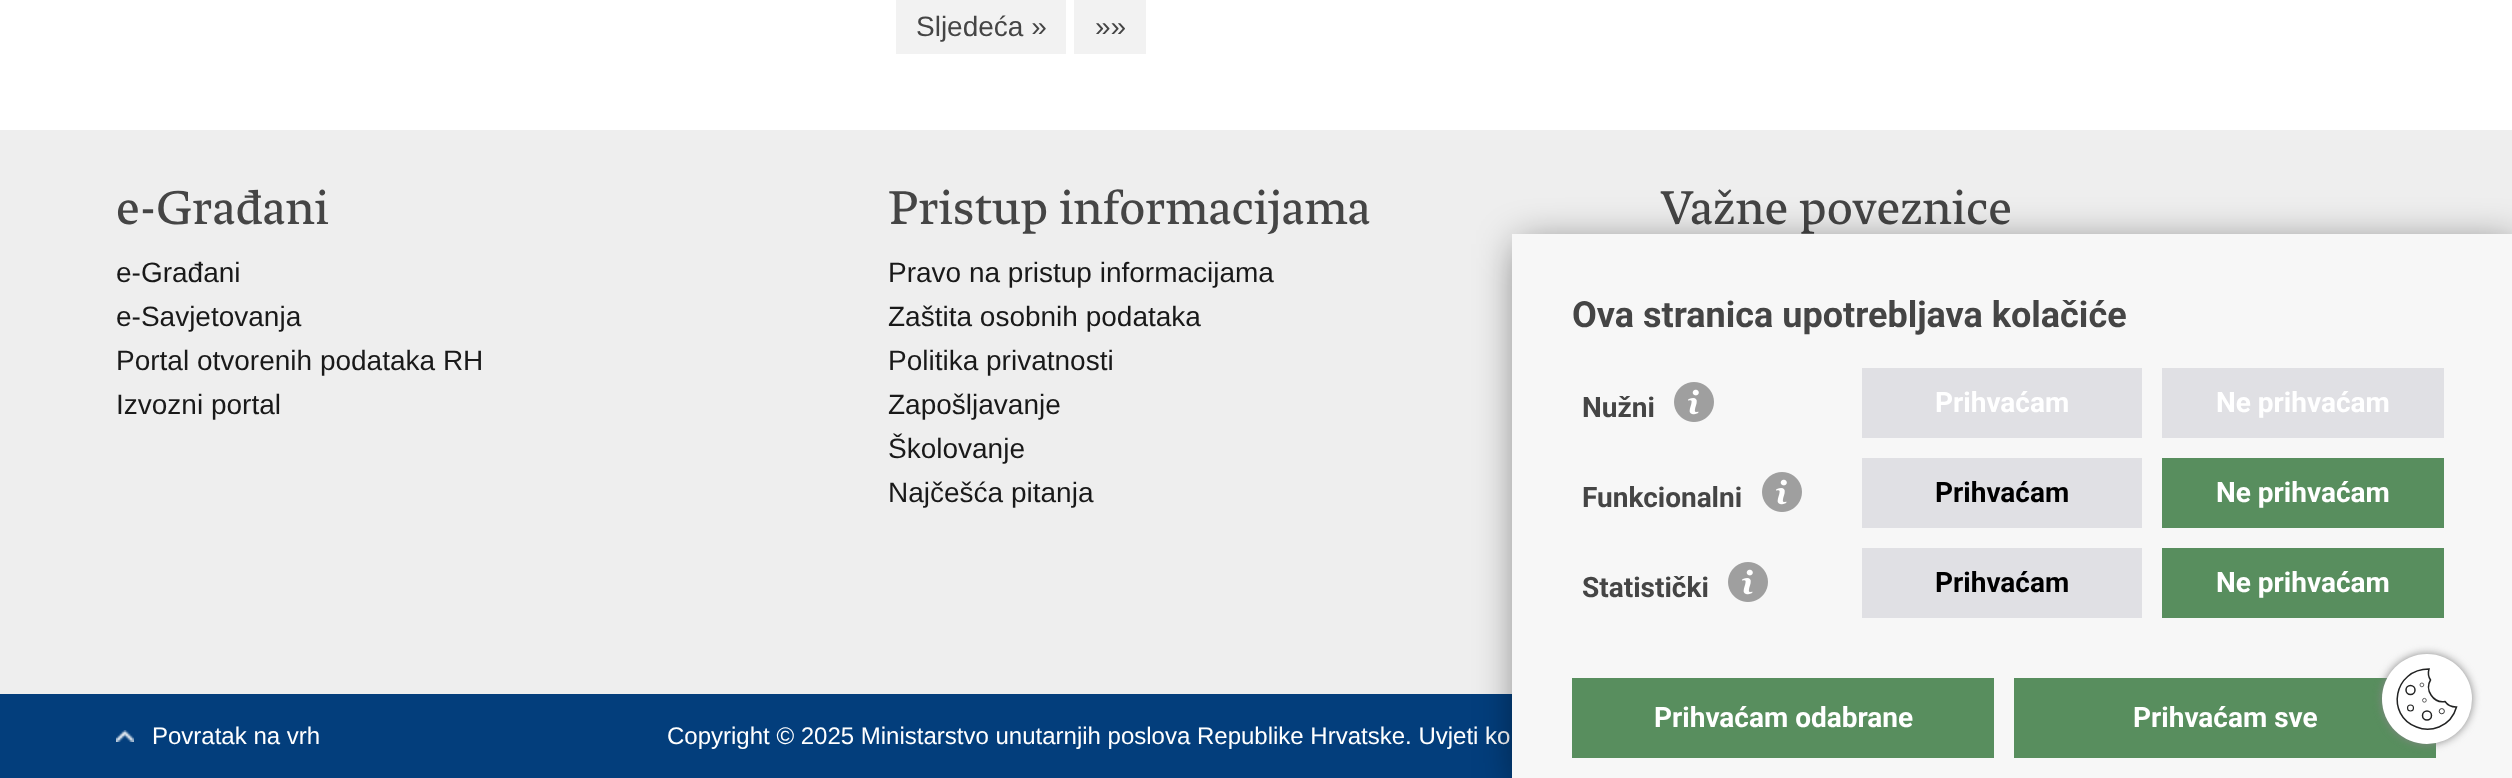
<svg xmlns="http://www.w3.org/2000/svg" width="2512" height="778">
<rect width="100%" height="100%" fill="#fff"/>
<rect x="896" width="170" height="54" fill="#f2f2f2"/>
<text x="916" y="36" style="font-family:Liberation Sans;font-size:28px;fill:#454545">Sljedeća »</text>
<rect x="1074" width="72" height="54" fill="#f2f2f2"/>
<text x="1095" y="36" style="font-family:Liberation Sans;font-size:28px;fill:#454545">»»</text>
<rect y="130" width="2512" height="564" fill="#eee"/>
<text x="116" y="224" style="font-family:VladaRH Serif;font-size:50px;fill:#454545">e-Građani</text>
<text x="116" y="282" style="font-family:Liberation Sans;font-size:28px;fill:#191919">e-Građani</text>
<text x="116" y="326" style="font-family:Liberation Sans;font-size:28px;fill:#191919">e-Savjetovanja</text>
<text x="116" y="370" style="font-family:Liberation Sans;font-size:28px;fill:#191919">Portal otvorenih podataka RH</text>
<text x="116" y="414" style="font-family:Liberation Sans;font-size:28px;fill:#191919">Izvozni portal</text>
<text x="888" y="224" style="font-family:VladaRH Serif;font-size:50px;fill:#454545">Pristup informacijama</text>
<text x="888" y="282" style="font-family:Liberation Sans;font-size:28px;fill:#191919">Pravo na pristup informacijama</text>
<text x="888" y="326" style="font-family:Liberation Sans;font-size:28px;fill:#191919">Zaštita osobnih podataka</text>
<text x="888" y="370" style="font-family:Liberation Sans;font-size:28px;fill:#191919">Politika privatnosti</text>
<text x="888" y="414" style="font-family:Liberation Sans;font-size:28px;fill:#191919">Zapošljavanje</text>
<text x="888" y="458" style="font-family:Liberation Sans;font-size:28px;fill:#191919">Školovanje</text>
<text x="888" y="502" style="font-family:Liberation Sans;font-size:28px;fill:#191919">Najčešća pitanja</text>
<text x="1660" y="224" style="font-family:VladaRH Serif;font-size:50px;fill:#454545">Važne poveznice</text>
<rect y="694" width="1512" height="84" fill="#033e7c"/>
<image x="116" y="730" width="18" height="12" href="media/1.png"/>
<text x="152" y="744" style="font-family:Liberation Sans;font-size:24px;fill:#fff">Povratak na vrh</text>
<text x="667" y="744" style="font-family:Liberation Sans;font-size:24px;fill:#fff">Copyright © 2025 Ministarstvo unutarnjih poslova Republike Hrvatske. Uvjeti ko</text>
<rect x="1518" y="244" width="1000" height="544" fill="#00000080" filter="blur(20px)"/>
<rect x="1512" y="234" width="1000" height="544" fill="#f7f7f7"/>
<text x="1572" y="327" style="font-family:Roboto;font-size:36px;font-weight:bold;fill:#454545">Ova stranica upotrebljava kolačiće</text>
<text x="1582" y="417" style="font-family:Roboto;font-size:28px;font-weight:bold;fill:#454545">Nužni</text>
<image x="1674" y="382" width="40" height="40" href="media/2.png"/>
<rect x="1862" y="368" width="280" height="70" fill="#e0e0e4"/>
<text x="1935" y="412" style="font-family:Roboto;font-size:28px;font-weight:bold;fill:#fff">Prihvaćam</text>
<rect x="2162" y="368" width="282" height="70" fill="#e0e0e4"/>
<text x="2216" y="412" style="font-family:Roboto;font-size:28px;font-weight:bold;fill:#fff">Ne prihvaćam</text>
<text x="1582" y="507" style="font-family:Roboto;font-size:28px;font-weight:bold;fill:#454545">Funkcionalni</text>
<image x="1762" y="472" width="40" height="40" href="media/2.png"/>
<rect x="1862" y="458" width="280" height="70" fill="#e0e0e4"/>
<text x="1935" y="502" style="font-family:Roboto;font-size:28px;font-weight:bold;fill:#000">Prihvaćam</text>
<rect x="2162" y="458" width="282" height="70" fill="#588e5e"/>
<text x="2216" y="502" style="font-family:Roboto;font-size:28px;font-weight:bold;fill:#fff">Ne prihvaćam</text>
<text x="1582" y="597" style="font-family:Roboto;font-size:28px;font-weight:bold;fill:#454545">Statistički</text>
<image x="1728" y="562" width="40" height="40" href="media/2.png"/>
<rect x="1862" y="548" width="280" height="70" fill="#e0e0e4"/>
<text x="1935" y="592" style="font-family:Roboto;font-size:28px;font-weight:bold;fill:#000">Prihvaćam</text>
<rect x="2162" y="548" width="282" height="70" fill="#588e5e"/>
<text x="2216" y="592" style="font-family:Roboto;font-size:28px;font-weight:bold;fill:#fff">Ne prihvaćam</text>
<rect x="1572" y="678" width="422" height="80" fill="#588e5e"/>
<text x="1654" y="727" style="font-family:Roboto;font-size:28px;font-weight:bold;fill:#fff">Prihvaćam odabrane</text>
<rect x="2014" y="678" width="422" height="80" fill="#588e5e"/>
<text x="2133" y="727" style="font-family:Roboto;font-size:28px;font-weight:bold;fill:#fff">Prihvaćam sve</text>
<rect x="2382" y="654" width="90" height="90" rx="45" fill="#858585" filter="blur(4px)"/>
<circle cx="2427" cy="699" r="45" fill="#fff"/>
<path d="M2456 707c-4.5 0-8.5-2-11-5.5c-11.5 2-20.5-11.5-14.5-21.5c-2-3-2.5-7.5-1.5-11c-35.5 0-43.5 46.5-12.5 58c7 3 15 3 22.5 0c8.5-3.5 15-11 17.5-20z" fill="none" stroke="#222323" stroke-width="1.5"/>
<circle cx="2410.5" cy="690" r="4.5" fill="none" stroke="#222323" stroke-width="1.5"/>
<circle cx="2427" cy="715.5" r="4.5" fill="none" stroke="#222323" stroke-width="1.5"/>
<circle cx="2410.5" cy="708" r="3" fill="none" stroke="#222323" stroke-width="1.1"/>
<circle cx="2441.8" cy="711.2" r="2.6" fill="none" stroke="#222323" stroke-width="0.9"/>
<circle cx="2424.4" cy="700.3" r="1.9" fill="none" stroke="#222323" stroke-width="0.7"/>
<circle cx="2421.9" cy="684.9" r="1.9" fill="none" stroke="#222323" stroke-width="0.7"/>
</svg>
